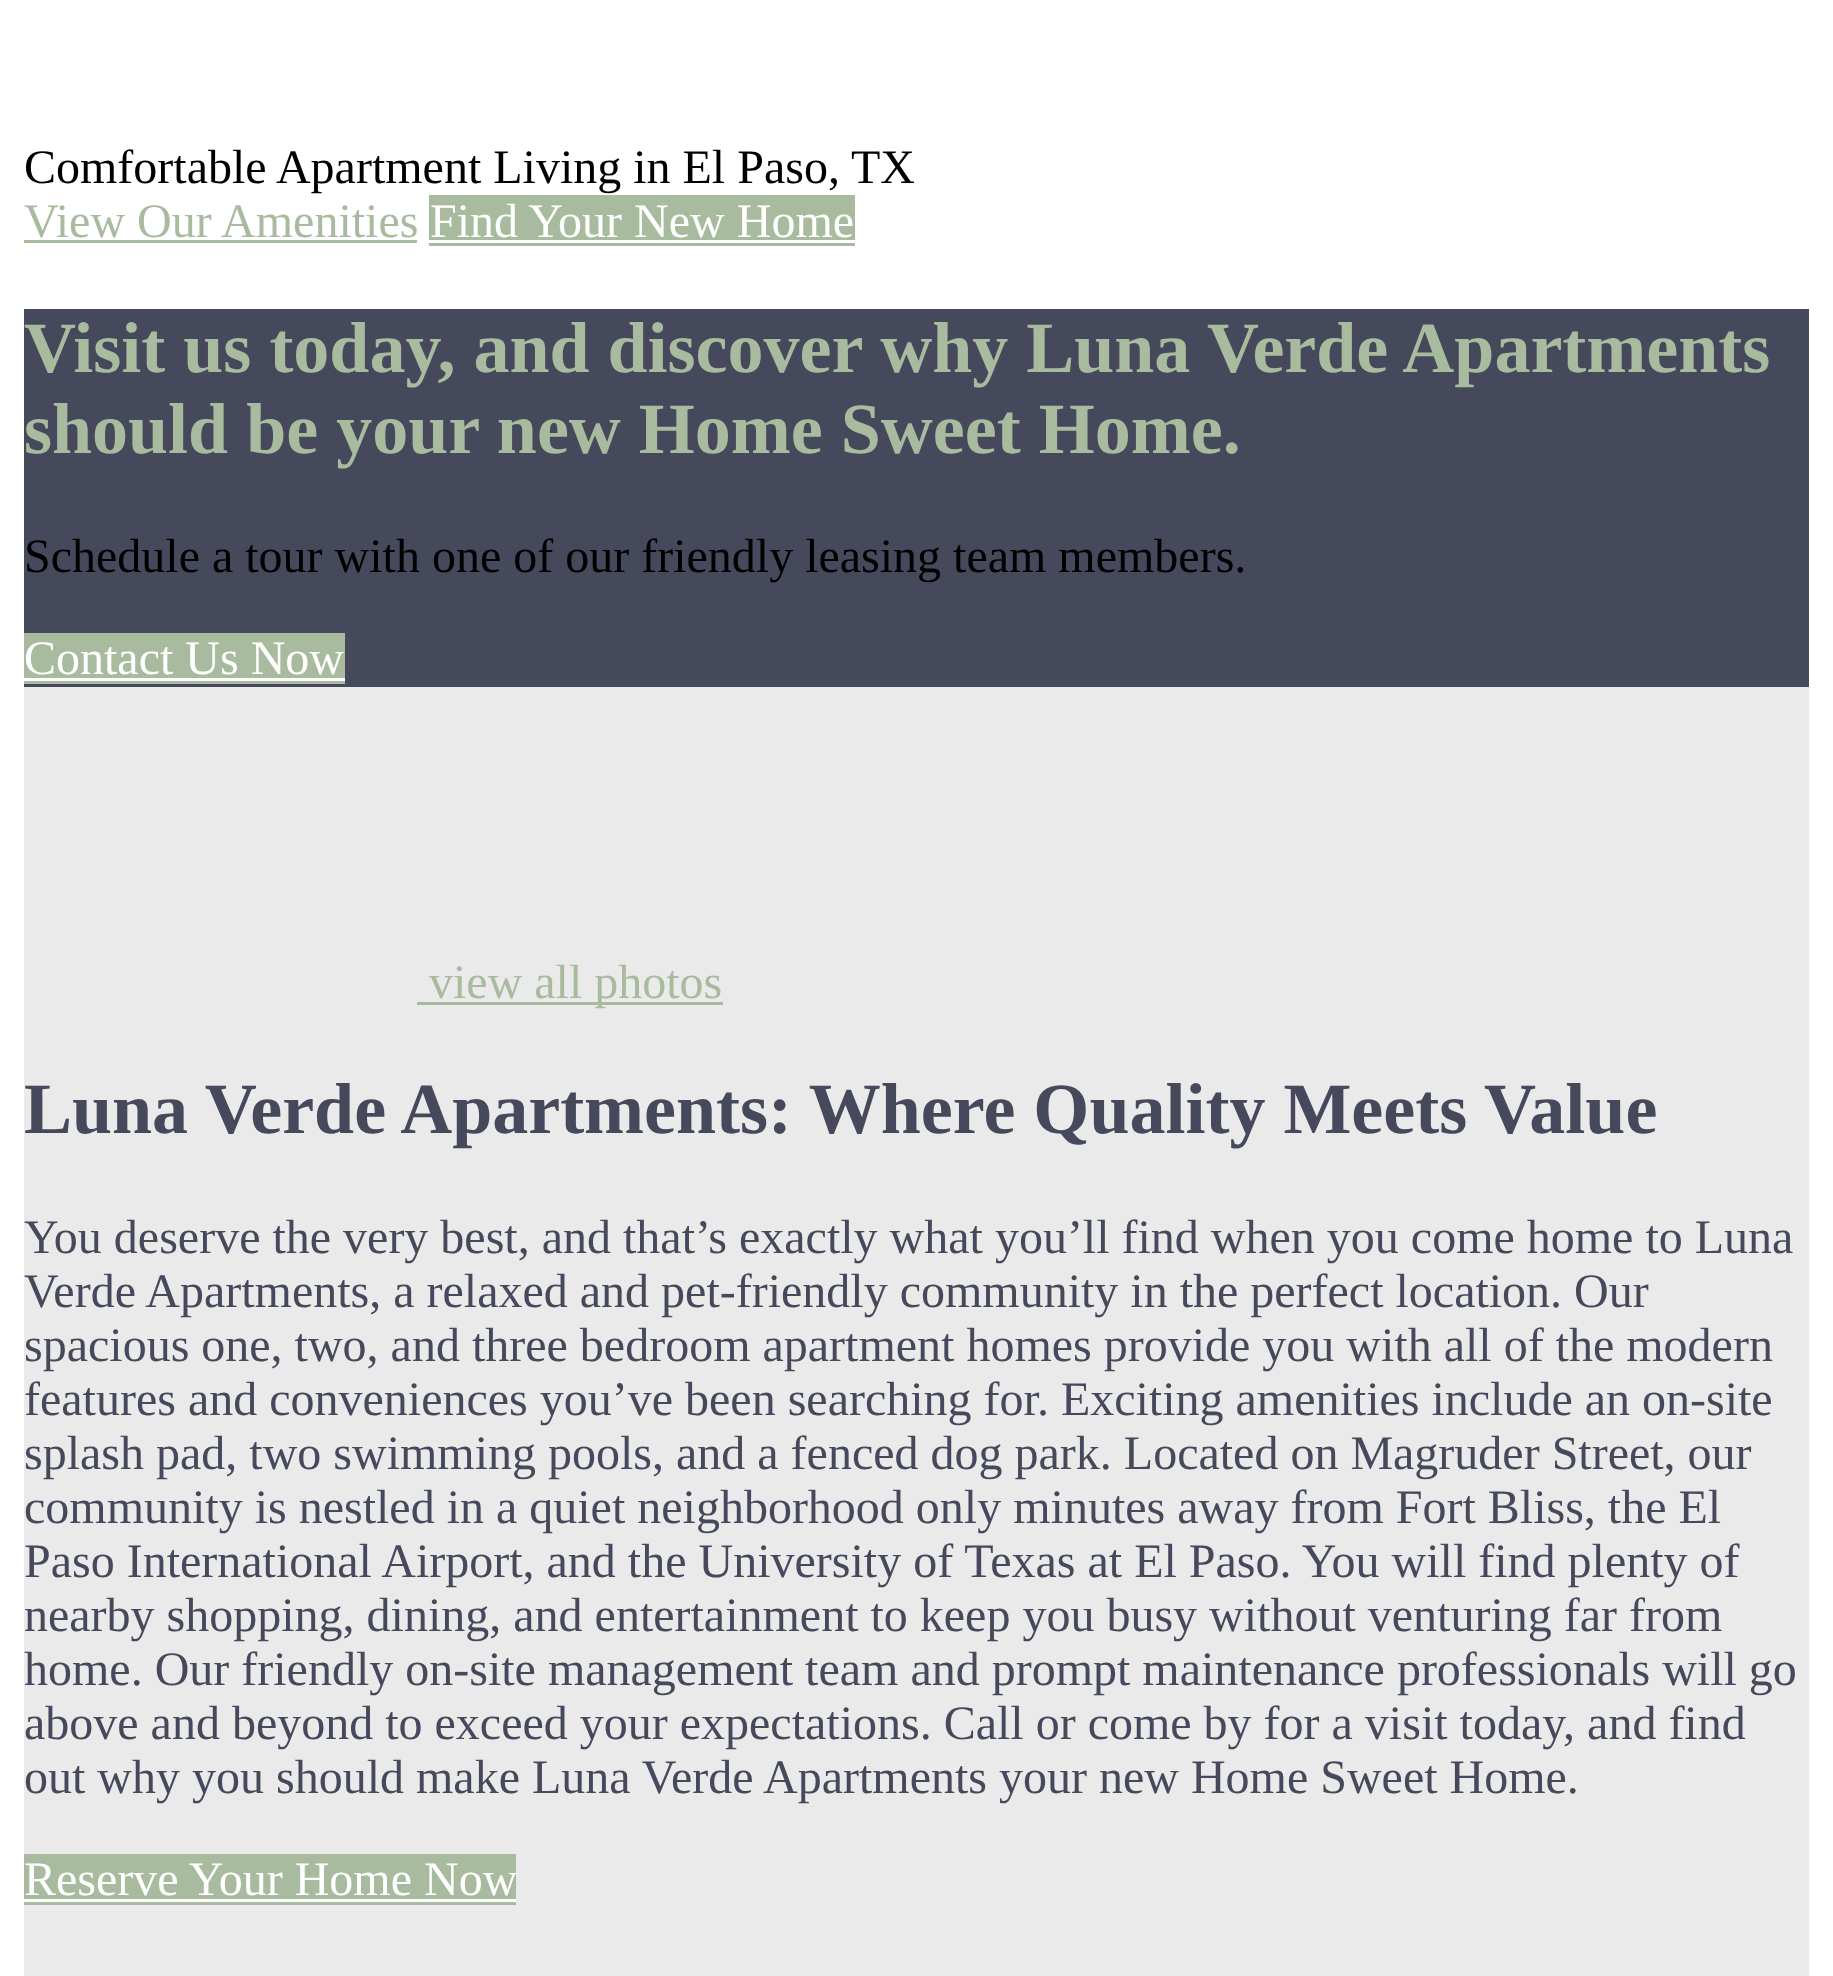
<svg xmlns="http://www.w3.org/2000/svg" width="1833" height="1976">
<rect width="100%" height="100%" fill="#fff"/>
<text x="24" y="183" style="font-family:Liberation Serif;font-size:48px;fill:#000">Comfortable Apartment Living in El Paso, TX</text>
<text x="24" y="237" style="font-family:Liberation Serif;font-size:48px;fill:#a9bb9e">View Our Amenities</text>
<rect x="24" y="240" width="393" height="3" fill="#a9bb9e"/>
<rect x="429" y="195" width="426" height="51" fill="#a9bb9e"/>
<text x="430" y="237" style="font-family:Liberation Serif;font-size:48px;fill:#fff">Find Your New Home</text>
<rect x="429" y="240" width="426" height="3" fill="#fff"/>
<rect x="24" y="309" width="1785" height="378" fill="#46495c"/>
<text x="24" y="372" style="font-family:Liberation Serif;font-size:72px;font-weight:bold;fill:#a9bb9e">Visit us today, and discover why Luna Verde Apartments</text>
<text x="24" y="453" style="font-family:Liberation Serif;font-size:72px;font-weight:bold;fill:#a9bb9e">should be your new Home Sweet Home.</text>
<text x="24" y="572" style="font-family:Liberation Serif;font-size:48px;fill:#000">Schedule a tour with one of our friendly leasing team members.</text>
<rect x="24" y="633" width="321" height="51" fill="#a9bb9e"/>
<text x="24" y="674" style="font-family:Liberation Serif;font-size:48px;fill:#fff">Contact Us Now</text>
<rect x="24" y="678" width="321" height="3" fill="#fff"/>
<rect x="24" y="687" width="1785" height="1289" fill="#eaeaea"/>
<rect x="417" y="1002" width="306" height="3" fill="#a9bb9e"/>
<text x="429" y="998" style="font-family:Liberation Serif;font-size:48px;fill:#a9bb9e">view all photos</text>
<text x="24" y="1133" style="font-family:Liberation Serif;font-size:72px;font-weight:bold;fill:#46495c">Luna Verde Apartments: Where Quality Meets Value</text>
<text x="24" y="1253" style="font-family:Liberation Serif;font-size:48px;fill:#46495c">You deserve the very best, and that’s exactly what you’ll find when you come home to Luna</text>
<text x="24" y="1307" style="font-family:Liberation Serif;font-size:48px;fill:#46495c">Verde Apartments, a relaxed and pet-friendly community in the perfect location. Our</text>
<text x="24" y="1361" style="font-family:Liberation Serif;font-size:48px;fill:#46495c">spacious one, two, and three bedroom apartment homes provide you with all of the modern</text>
<text x="24" y="1415" style="font-family:Liberation Serif;font-size:48px;fill:#46495c">features and conveniences you’ve been searching for. Exciting amenities include an on-site</text>
<text x="24" y="1469" style="font-family:Liberation Serif;font-size:48px;fill:#46495c">splash pad, two swimming pools, and a fenced dog park. Located on Magruder Street, our</text>
<text x="24" y="1523" style="font-family:Liberation Serif;font-size:48px;fill:#46495c">community is nestled in a quiet neighborhood only minutes away from Fort Bliss, the El</text>
<text x="24" y="1577" style="font-family:Liberation Serif;font-size:48px;fill:#46495c">Paso International Airport, and the University of Texas at El Paso. You will find plenty of</text>
<text x="24" y="1631" style="font-family:Liberation Serif;font-size:48px;fill:#46495c">nearby shopping, dining, and entertainment to keep you busy without venturing far from</text>
<text x="24" y="1685" style="font-family:Liberation Serif;font-size:48px;fill:#46495c">home. Our friendly on-site management team and prompt maintenance professionals will go</text>
<text x="24" y="1739" style="font-family:Liberation Serif;font-size:48px;fill:#46495c">above and beyond to exceed your expectations. Call or come by for a visit today, and find</text>
<text x="24" y="1793" style="font-family:Liberation Serif;font-size:48px;fill:#46495c">out why you should make Luna Verde Apartments your new Home Sweet Home.</text>
<rect x="24" y="1854" width="492" height="51" fill="#a9bb9e"/>
<text x="24" y="1895" style="font-family:Liberation Serif;font-size:48px;fill:#fff">Reserve Your Home Now</text>
<rect x="24" y="1899" width="492" height="3" fill="#fff"/>
</svg>
